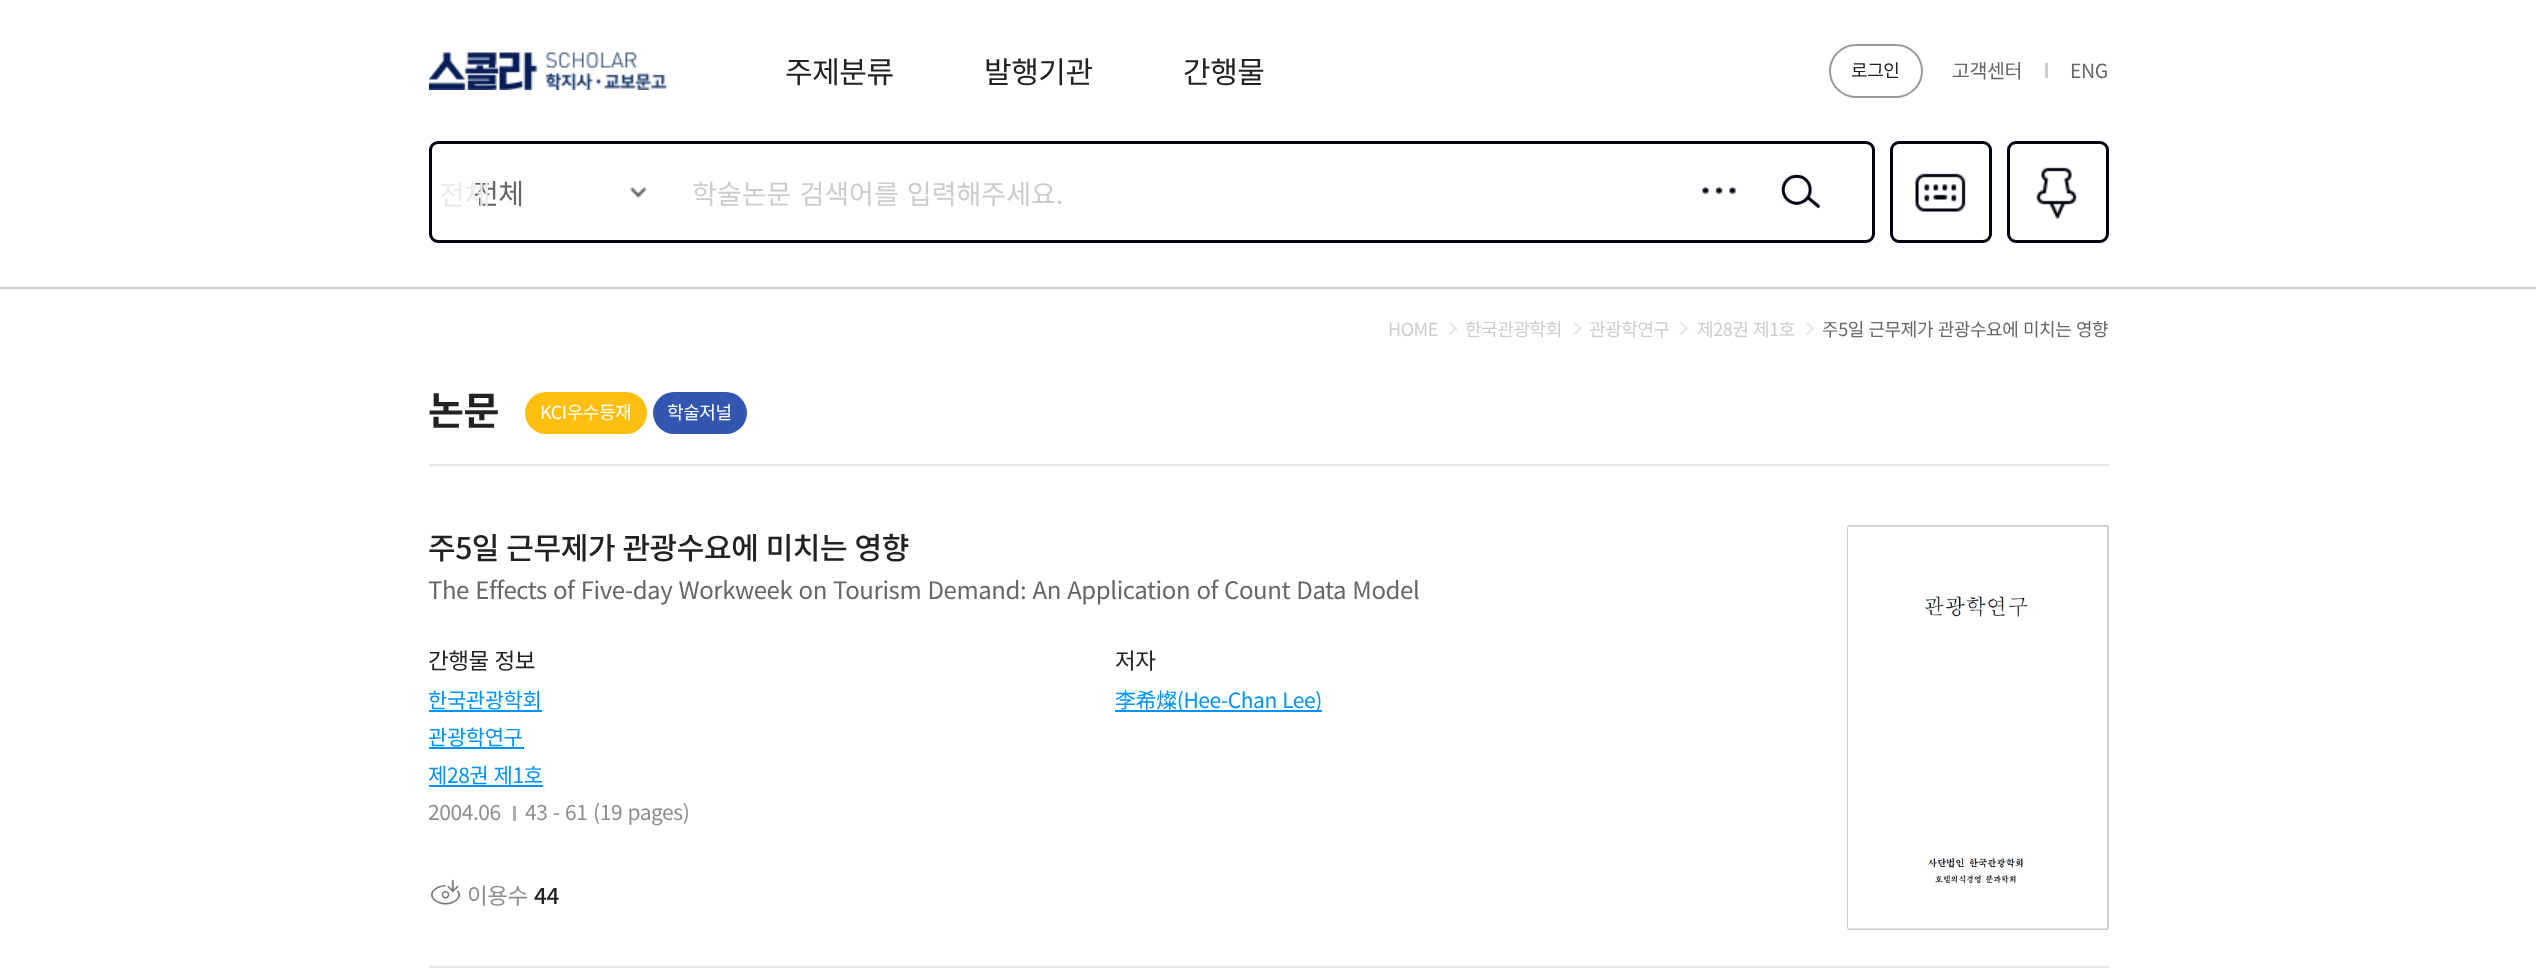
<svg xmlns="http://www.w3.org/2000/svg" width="2536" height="973">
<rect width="100%" height="100%" fill="#fff"/>
<rect y="287" width="2536" height="2" fill="#ccc"/>
<image x="429" y="52" width="238" height="38" href="media/1.png"/>
<text x="785" y="83" style="font-family:Noto Sans KR;font-size:30px;letter-spacing:-0.42px;fill:#222">주제분류</text>
<text x="984" y="83" style="font-family:Noto Sans KR;font-size:30px;letter-spacing:-0.42px;fill:#222">발행기관</text>
<text x="1183" y="83" style="font-family:Noto Sans KR;font-size:30px;letter-spacing:-0.42px;fill:#222">간행물</text>
<rect x="1830" y="45" width="92" height="52" rx="26" fill="none" stroke="#999" stroke-width="2"/>
<text x="1851" y="77" style="font-family:Noto Sans KR;font-size:18px;letter-spacing:-0.42px;fill:#222">로그인</text>
<text x="1952" y="78" style="font-family:Noto Sans KR;font-size:19.5px;letter-spacing:-0.42px;fill:#666">고객센터</text>
<rect x="2045" y="63" width="3" height="15" fill="#ccc"/>
<text x="2070" y="78" style="font-family:Noto Sans KR;font-size:19.5px;letter-spacing:-0.42px;fill:#666">ENG</text>
<rect x="430.5" y="142.5" width="1443" height="99" rx="7.5" fill="none" stroke="#000410" stroke-width="3"/>
<text x="473" y="204" style="font-family:Noto Sans KR;font-size:28px;letter-spacing:-0.42px;fill:#666">전체</text>
<text x="439" y="205" style="font-family:Noto Sans KR;font-size:28px;fill:#ebebeb">전체</text>
<image x="629" y="187" width="18" height="12" href="media/2.png"/>
<text x="692" y="204" word-spacing="2" style="font-family:Noto Sans KR;font-size:27px;fill:#ccc">학술논문 검색어를 입력해주세요.</text>
<image x="1702" y="186" width="34" height="9" href="media/3.png"/>
<image x="1781" y="174" width="40" height="35" href="media/4.png"/>
<image x="1915" y="173" width="51" height="39" href="media/5.png"/>
<rect x="1891.5" y="142.5" width="99" height="99" rx="7.5" fill="none" stroke="#000410" stroke-width="3"/>
<image x="2036" y="167" width="41" height="52" href="media/6.png"/>
<rect x="2008.5" y="142.5" width="99" height="99" rx="7.5" fill="none" stroke="#000410" stroke-width="3"/>
<text x="1388" y="336" style="font-family:Noto Sans KR;font-size:18px;letter-spacing:-0.42px;fill:#ccc">HOME</text>
<image x="1448" y="321" width="10" height="15" href="media/7.png"/>
<text x="1465" y="336" style="font-family:Noto Sans KR;font-size:18px;letter-spacing:-0.42px;fill:#ccc">한국관광학회</text>
<image x="1572" y="321" width="10" height="15" href="media/8.png"/>
<text x="1589" y="336" style="font-family:Noto Sans KR;font-size:18px;letter-spacing:-0.42px;fill:#ccc">관광학연구</text>
<image x="1679" y="321" width="10" height="15" href="media/9.png"/>
<text x="1697" y="336" word-spacing="1" style="font-family:Noto Sans KR;font-size:18px;letter-spacing:-0.42px;fill:#ccc">제28권 제1호</text>
<image x="1805" y="321" width="10" height="15" href="media/9.png"/>
<text x="1822" y="336" word-spacing="1" style="font-family:Noto Sans KR;font-size:18px;letter-spacing:-0.42px;fill:#666">주5일 근무제가 관광수요에 미치는 영향</text>
<rect x="429" y="464" width="1680" height="2" fill="#e5e5e5"/>
<text x="428" y="425" style="font-family:Noto Sans KR;font-size:39px;font-weight:bold;letter-spacing:-0.42px;fill:#222">논문</text>
<rect x="525" y="392" width="122" height="42" rx="21" fill="#ffbf10"/>
<text x="540" y="419" style="font-family:Noto Sans KR;font-size:18px;letter-spacing:-0.42px;fill:#fff">KCI우수등재</text>
<rect x="653" y="392" width="94" height="42" rx="21" fill="#3356b1"/>
<text x="667" y="419" style="font-family:Noto Sans KR;font-size:18px;letter-spacing:-0.42px;fill:#fff">학술저널</text>
<text x="428" y="559" word-spacing="1" style="font-family:Noto Sans KR;font-size:30px;font-weight:500;letter-spacing:-0.42px;fill:#222">주5일 근무제가 관광수요에 미치는 영향</text>
<text x="428" y="599" word-spacing="1.3" style="font-family:Noto Sans KR;font-size:24px;letter-spacing:-0.42px;fill:#666">The Effects of Five-day Workweek on Tourism Demand: An Application of Count Data Model</text>
<text x="428" y="669" word-spacing="1" style="font-family:Noto Sans KR;font-size:22.5px;letter-spacing:-0.42px;fill:#222">간행물 정보</text>
<text x="428" y="708" style="font-family:Noto Sans KR;font-size:21px;letter-spacing:-0.42px;fill:#0093ff">한국관광학회</text>
<rect x="429" y="710" width="113" height="2" fill="#0093ff"/>
<text x="428" y="745" style="font-family:Noto Sans KR;font-size:21px;letter-spacing:-0.42px;fill:#0093ff">관광학연구</text>
<rect x="429" y="747" width="95" height="2" fill="#0093ff"/>
<text x="428" y="783" word-spacing="1" style="font-family:Noto Sans KR;font-size:21px;letter-spacing:-0.42px;fill:#0093ff">제28권 제1호</text>
<rect x="429" y="785" width="114" height="2" fill="#0093ff"/>
<text x="428" y="820" style="font-family:Noto Sans KR;font-size:21px;letter-spacing:-0.42px;fill:#8e8e8e">2004.06</text>
<rect x="513" y="806" width="3" height="15" fill="#aeaeae"/>
<text x="525" y="820" word-spacing="1" style="font-family:Noto Sans KR;font-size:21px;letter-spacing:-0.42px;fill:#8e8e8e">43 - 61</text>
<text x="593" y="820" word-spacing="1" style="font-family:Noto Sans KR;font-size:21px;letter-spacing:-0.42px;fill:#8e8e8e">(19 pages)</text>
<text x="1115" y="669" style="font-family:Noto Sans KR;font-size:22.5px;letter-spacing:-0.42px;fill:#222">저자</text>
<rect x="1115" y="710" width="207" height="2" fill="#0093ff"/>
<text x="1115" y="708" word-spacing="1" style="font-family:Noto Sans KR;font-size:21px;letter-spacing:-0.42px;fill:#0093ff">李希燦(Hee-Chan Lee)</text>
<image x="430" y="879" width="31" height="26" href="media/10.png"/>
<text x="467" y="904" style="font-family:Noto Sans KR;font-size:22.5px;letter-spacing:-0.42px;fill:#8e8e8e">이용수</text>
<text x="534" y="904" style="font-family:Noto Sans KR;font-size:22.5px;font-weight:500;letter-spacing:-0.42px;fill:#222">44</text>
<rect x="1848" y="526" width="260" height="403" rx="2" fill="none" stroke="#ccc" stroke-width="2"/>
<image x="1848" y="526" width="260" height="403" href="media/11.png"/>
<rect x="429" y="966" width="1680" height="2" fill="#e5e5e5"/>
</svg>
